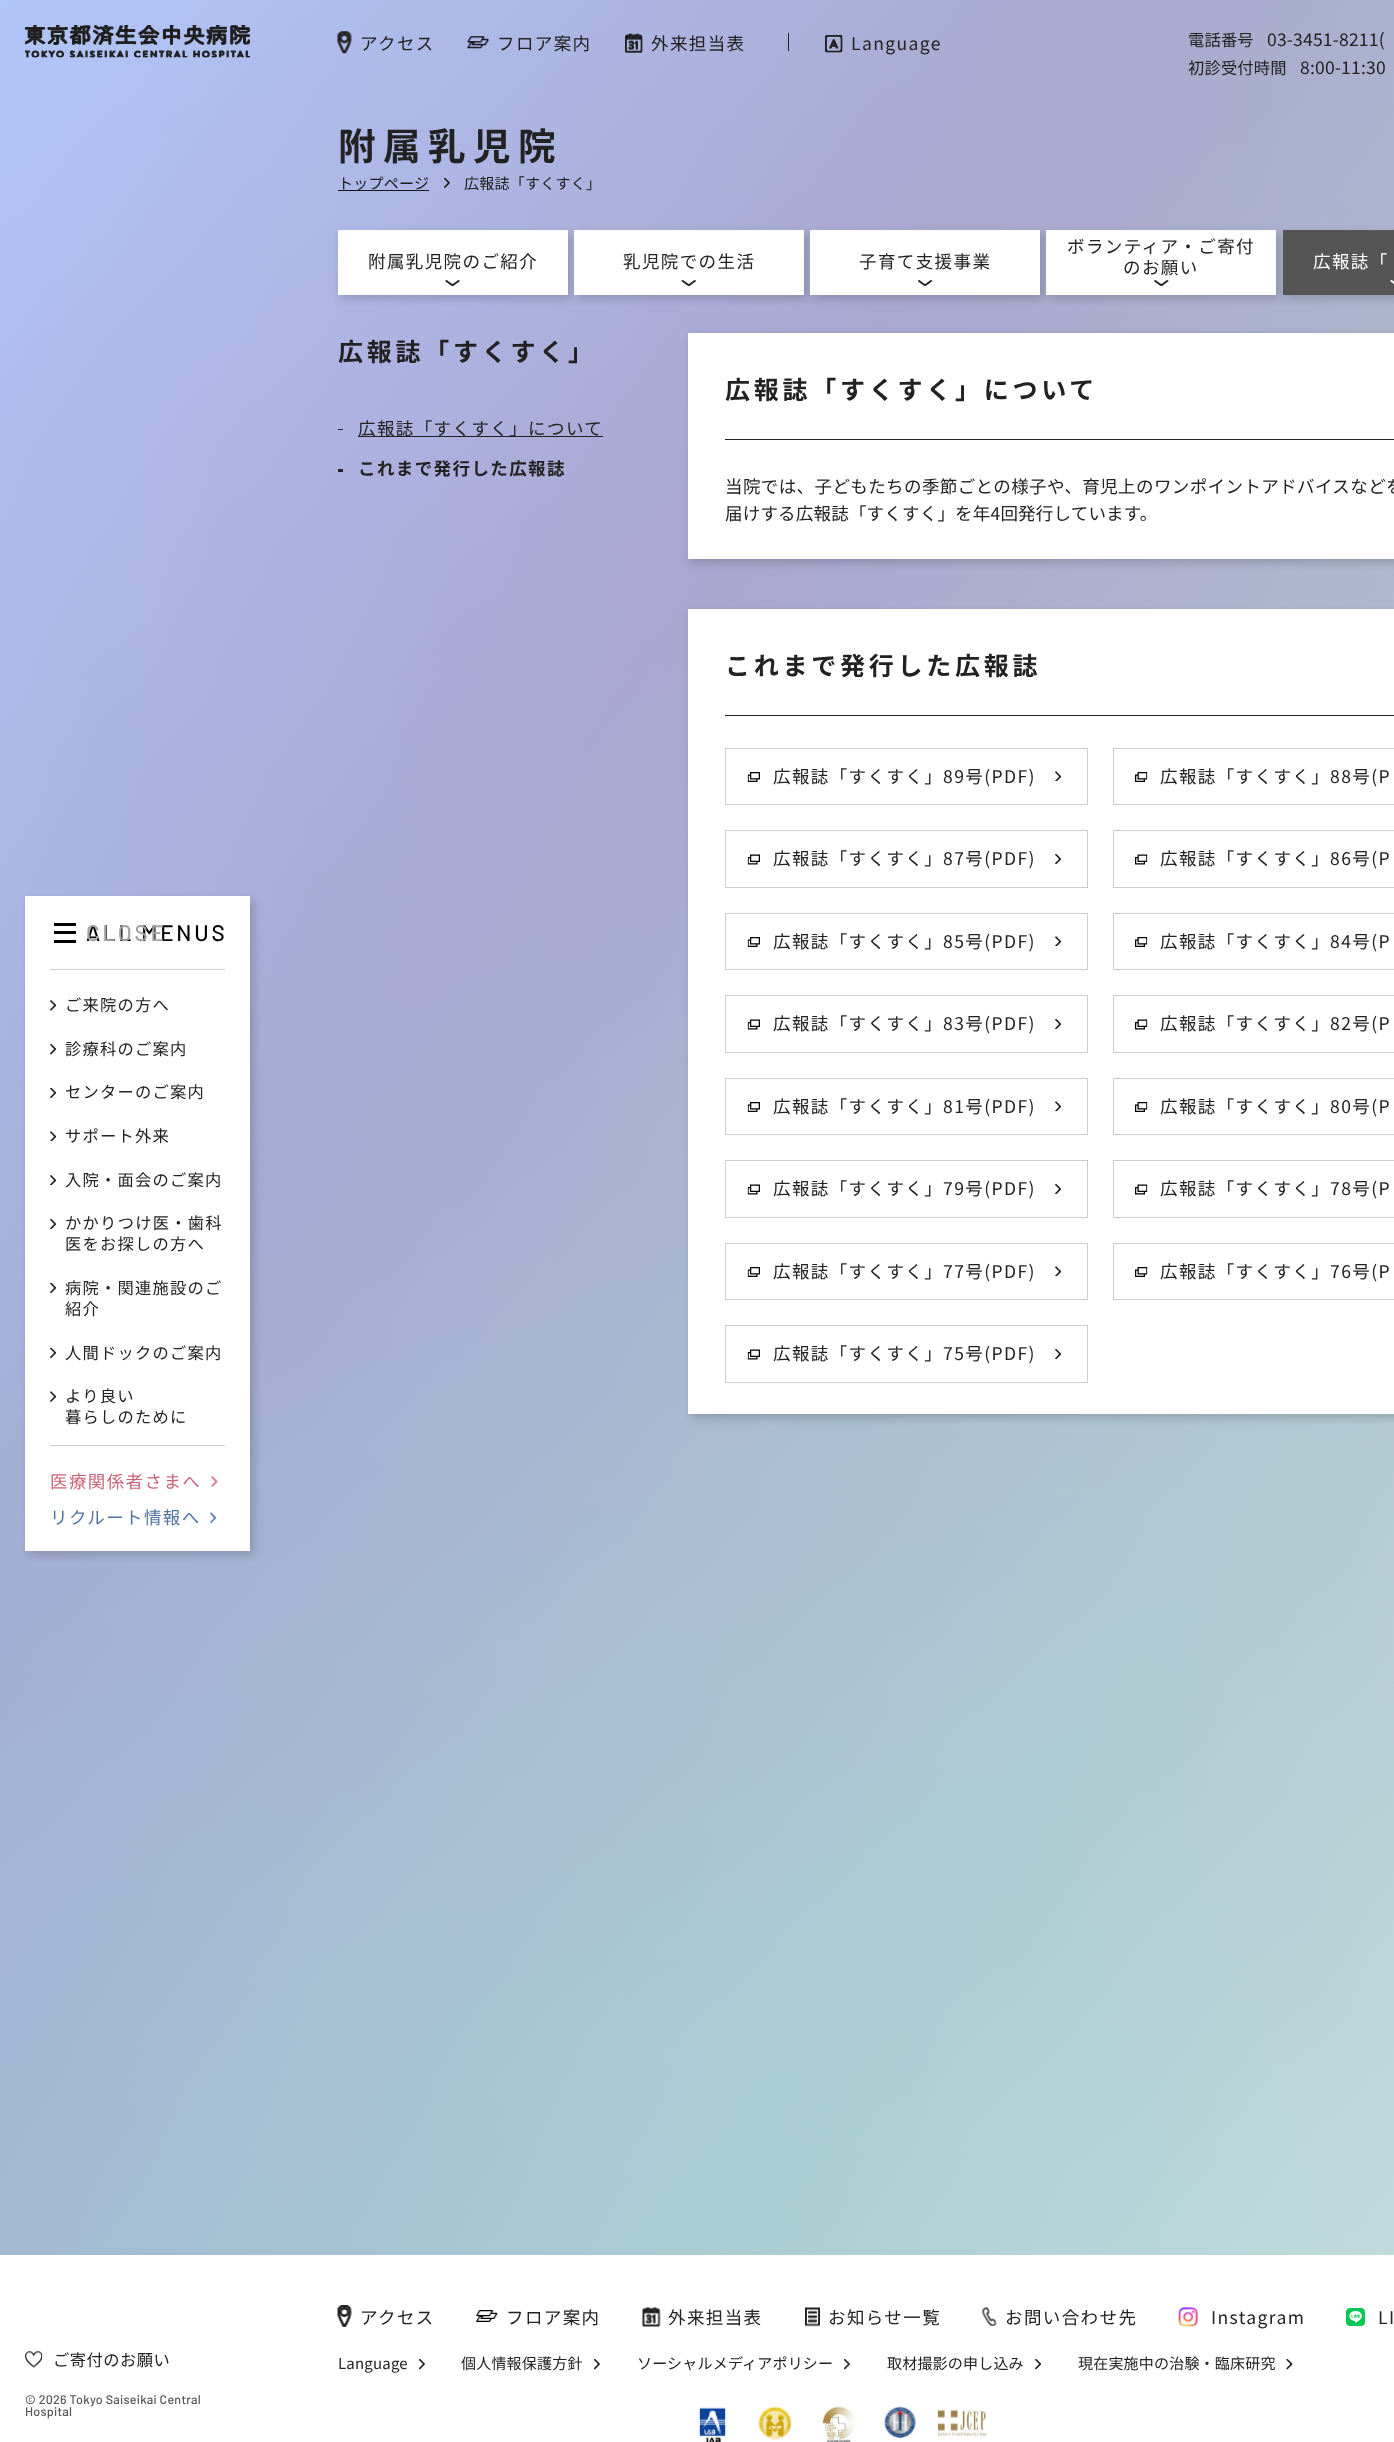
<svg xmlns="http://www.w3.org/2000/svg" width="1394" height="2442">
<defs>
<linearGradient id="g1" gradientUnits="userSpaceOnUse" x1="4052" y1="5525" x2="-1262" y2="1803"><stop offset="0" stop-color="#7f9cd1"/><stop offset="0.14" stop-color="#8f8cc1"/><stop offset="0.29" stop-color="#9ba1c1"/><stop offset="0.43" stop-color="#c8ceda"/><stop offset="0.57" stop-color="#ccdad3"/><stop offset="0.71" stop-color="#9bbcc1"/><stop offset="0.86" stop-color="#8c91c1"/><stop offset="1" stop-color="#98bcff"/></linearGradient>
<linearGradient id="g2" gradientUnits="userSpaceOnUse" x1="1342" y1="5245" x2="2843" y2="-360"><stop offset="0" stop-color="#e4efe9" stop-opacity="0.3"/><stop offset="0.25" stop-color="#b4e8ff" stop-opacity="0.3"/><stop offset="0.5" stop-color="#d0f9ff" stop-opacity="0.3"/><stop offset="0.75" stop-color="#efd6ef" stop-opacity="0.3"/><stop offset="1" stop-color="#e4efe9" stop-opacity="0.3"/></linearGradient>
</defs>
<rect width="100%" height="100%" fill="#fff"/>
<rect width="1394" height="2255" fill="url(#g1)"/>
<rect width="1394" height="2255" fill="url(#g2)"/>
<image x="337" y="31" width="15" height="23" href="media/1.png"/>
<text x="360" y="50" style="font-family:Noto Sans JP;font-size:17.5px;letter-spacing:1.4px;fill:#222">アクセス</text>
<image x="467" y="36" width="22" height="13" href="media/2.png"/>
<text x="497" y="50" style="font-family:Noto Sans JP;font-size:17.5px;letter-spacing:1.4px;fill:#222">フロア案内</text>
<image x="625" y="33" width="18" height="20" href="media/3.png"/>
<text x="651" y="50" style="font-family:Noto Sans JP;font-size:17.5px;letter-spacing:1.4px;fill:#222">外来担当表</text>
<rect x="788" y="33" width="1" height="18" fill="#222"/>
<image x="825" y="35" width="18" height="18" href="media/4.png"/>
<text x="851" y="50" style="font-family:Noto Sans JP;font-size:17.5px;letter-spacing:1.4px;fill:#222">Language</text>
<text x="1188" y="46" style="font-family:Noto Sans JP;font-size:16.25px;letter-spacing:0.2px;fill:#222">電話番号</text>
<text x="1267" y="46" style="font-family:Noto Sans JP;font-size:17.5px;letter-spacing:0.2px;fill:#222">03-3451-8211(</text>
<text x="1188" y="74" style="font-family:Noto Sans JP;font-size:16.25px;letter-spacing:0.2px;fill:#222">初診受付時間</text>
<text x="1300" y="74" style="font-family:Noto Sans JP;font-size:17.5px;letter-spacing:0.2px;fill:#222">8:00-11:30</text>
<image x="25" y="25" width="225" height="33" href="media/5.png"/>
<rect x="29" y="900" width="225" height="655" fill="#00000029" filter="blur(4px)"/>
<rect x="25" y="896" width="225" height="655" fill="#fff"/>
<rect x="54" y="923" width="22" height="3" fill="#000"/>
<rect x="54" y="931" width="22" height="3" fill="#000"/>
<rect x="54" y="940" width="22" height="3" fill="#000"/>
<text x="86" y="941" style="font-family:Barlow;font-size:22.5px;font-weight:500;letter-spacing:2.75px;fill:#000">ALL MENUS</text>
<text x="86" y="941" style="font-family:Barlow;font-size:22.5px;font-weight:500;letter-spacing:2.75px;fill:#a2a2a2">CLOSE</text>
<rect x="50" y="969" width="175" height="1" fill="#ccc"/>
<image x="50" y="1000" width="6" height="11" href="media/6.png"/>
<text x="65" y="1011" style="font-family:Noto Sans JP;font-size:16.25px;letter-spacing:1.25px;fill:#222">ご来院の方へ</text>
<image x="50" y="1044" width="6" height="11" href="media/7.png"/>
<text x="65" y="1055" style="font-family:Noto Sans JP;font-size:16.25px;letter-spacing:1.25px;fill:#222">診療科のご案内</text>
<image x="50" y="1088" width="6" height="11" href="media/8.png"/>
<text x="65" y="1098" style="font-family:Noto Sans JP;font-size:16.25px;letter-spacing:1.25px;fill:#222">センターのご案内</text>
<image x="50" y="1131" width="6" height="10" href="media/9.png"/>
<text x="65" y="1142" style="font-family:Noto Sans JP;font-size:16.25px;letter-spacing:1.25px;fill:#222">サポート外来</text>
<image x="50" y="1175" width="6" height="10" href="media/10.png"/>
<text x="65" y="1186" style="font-family:Noto Sans JP;font-size:16.25px;letter-spacing:1.25px;fill:#222">入院・面会のご案内</text>
<image x="50" y="1219" width="6" height="10" href="media/11.png"/>
<text x="65" y="1229" style="font-family:Noto Sans JP;font-size:16.25px;letter-spacing:1.25px;fill:#222">かかりつけ医・歯科</text>
<text x="65" y="1250" style="font-family:Noto Sans JP;font-size:16.25px;letter-spacing:1.25px;fill:#222">医をお探しの方へ</text>
<image x="50" y="1283" width="6" height="11" href="media/8.png"/>
<text x="65" y="1294" style="font-family:Noto Sans JP;font-size:16.25px;letter-spacing:1.25px;fill:#222">病院・関連施設のご</text>
<text x="65" y="1315" style="font-family:Noto Sans JP;font-size:16.25px;letter-spacing:1.25px;fill:#222">紹介</text>
<image x="50" y="1348" width="6" height="11" href="media/8.png"/>
<text x="65" y="1359" style="font-family:Noto Sans JP;font-size:16.25px;letter-spacing:1.25px;fill:#222">人間ドックのご案内</text>
<image x="50" y="1391" width="6" height="11" href="media/12.png"/>
<text x="65" y="1402" style="font-family:Noto Sans JP;font-size:16.25px;letter-spacing:1.25px;fill:#222">より良い</text>
<text x="65" y="1423" style="font-family:Noto Sans JP;font-size:16.25px;letter-spacing:1.25px;fill:#222">暮らしのために</text>
<rect x="50" y="1445" width="175" height="1" fill="#ccc"/>
<text x="50" y="1488" style="font-family:Noto Sans JP;font-size:17.5px;letter-spacing:1.4px;fill:#cc6478">医療関係者さまへ</text>
<image x="211" y="1476" width="7" height="12" href="media/13.png"/>
<text x="50" y="1524" style="font-family:Noto Sans JP;font-size:17.5px;letter-spacing:1.4px;fill:#5274a3">リクルート情報へ</text>
<image x="210" y="1512" width="6" height="12" href="media/14.png"/>
<image x="25" y="2351" width="18" height="17" href="media/15.png"/>
<text x="53" y="2366" style="font-family:Noto Sans JP;font-size:16.25px;letter-spacing:0.5px;fill:#222">ご寄付のお願い</text>
<text x="25" y="2404" style="font-family:Barlow;font-size:12.5px;font-weight:500;letter-spacing:0.25px;fill:#555">© 2026 Tokyo Saiseikai Central</text>
<text x="25" y="2416" style="font-family:Barlow;font-size:12.5px;font-weight:500;letter-spacing:0.25px;fill:#555">Hospital</text>
<text x="338" y="160" style="font-family:Noto Sans JP;font-size:37.5px;font-weight:bold;letter-spacing:7.5px;fill:#222">附属乳児院</text>
<rect x="338" y="190" width="91" height="1" fill="#1a1a1a"/>
<text x="338" y="189" style="font-family:Noto Sans JP;font-size:15px;letter-spacing:0.25px;fill:#1a1a1a">トップページ</text>
<image x="444" y="178" width="6" height="10" href="media/16.png"/>
<text x="464" y="189" style="font-family:Noto Sans JP;font-size:15px;letter-spacing:0.25px;fill:#1a1a1a">広報誌「すくすく」</text>
<rect x="341" y="234" width="230" height="65" fill="#00000029" filter="blur(4px)"/>
<rect x="338" y="230" width="230" height="65" fill="#fff"/>
<text x="368" y="268" style="font-family:Noto Sans JP;font-size:17.5px;letter-spacing:1.4px;fill:#222">附属乳児院のご紹介</text>
<image x="445" y="280" width="15" height="6" href="media/17.png"/>
<rect x="578" y="234" width="230" height="65" fill="#00000029" filter="blur(4px)"/>
<rect x="574" y="230" width="230" height="65" fill="#fff"/>
<text x="623" y="268" style="font-family:Noto Sans JP;font-size:17.5px;letter-spacing:1.4px;fill:#222">乳児院での生活</text>
<image x="681" y="280" width="15" height="6" href="media/18.png"/>
<rect x="814" y="234" width="230" height="65" fill="#00000029" filter="blur(4px)"/>
<rect x="810" y="230" width="230" height="65" fill="#fff"/>
<text x="859" y="268" style="font-family:Noto Sans JP;font-size:17.5px;letter-spacing:1.4px;fill:#222">子育て支援事業</text>
<image x="918" y="280" width="15" height="6" href="media/19.png"/>
<rect x="1050" y="234" width="230" height="65" fill="#00000029" filter="blur(4px)"/>
<rect x="1046" y="230" width="230" height="65" fill="#fff"/>
<text x="1067" y="253" style="font-family:Noto Sans JP;font-size:17.5px;letter-spacing:1.4px;fill:#222">ボランティア・ご寄付</text>
<text x="1123" y="274" style="font-family:Noto Sans JP;font-size:17.5px;letter-spacing:1.4px;fill:#222">のお願い</text>
<image x="1154" y="280" width="15" height="6" href="media/20.png"/>
<rect x="1286" y="234" width="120" height="65" fill="#00000029" filter="blur(4px)"/>
<rect x="1283" y="230" width="111" height="65" fill="#555"/>
<text x="1313" y="268" style="font-family:Noto Sans JP;font-size:17.5px;letter-spacing:1.4px;fill:#fff">広報誌「</text>
<image x="1390" y="280" width="4" height="4" href="media/21.png"/>
<text x="338" y="361" style="font-family:Noto Sans JP;font-size:25px;font-weight:bold;letter-spacing:3.75px;fill:#222">広報誌「すくすく」</text>
<rect x="338" y="429" width="5" height="1" fill="#222"/>
<rect x="358" y="436" width="245" height="1" fill="#222"/>
<text x="358" y="435" style="font-family:Noto Sans JP;font-size:17.5px;letter-spacing:1.4px;fill:#222">広報誌「すくすく」について</text>
<rect x="338" y="469" width="5" height="3" fill="#222"/>
<text x="358" y="475" style="font-family:Noto Sans JP;font-size:17.5px;font-weight:bold;letter-spacing:1.4px;fill:#222">これまで発行した広報誌</text>
<rect x="691" y="336" width="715" height="227" fill="#00000029" filter="blur(4px)"/>
<rect x="688" y="333" width="706" height="226" fill="#fff"/>
<rect x="725" y="439" width="669" height="1" fill="#222"/>
<text x="725" y="399" style="font-family:Noto Sans JP;font-size:25px;font-weight:bold;letter-spacing:3.75px;fill:#222">広報誌「すくすく」について</text>
<text x="725" y="493" style="font-family:Noto Sans JP;font-size:17.5px;letter-spacing:0.4px;fill:#222">当院では、子どもたちの季節ごとの様子や、育児上のワンポイントアドバイスなどを</text>
<text x="725" y="520" style="font-family:Noto Sans JP;font-size:17.5px;letter-spacing:0.2px;fill:#222">届けする広報誌「すくすく」を年4回発行しています。</text>
<rect x="691" y="613" width="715" height="805" fill="#00000029" filter="blur(4px)"/>
<rect x="688" y="609" width="706" height="805" fill="#fff"/>
<rect x="725" y="715" width="669" height="1" fill="#222"/>
<text x="725" y="675" style="font-family:Noto Sans JP;font-size:25px;font-weight:bold;letter-spacing:3.75px;fill:#222">これまで発行した広報誌</text>
<rect x="725.5" y="748.5" width="362" height="56" fill="none" stroke="#ccc"/>
<image x="747" y="772" width="13" height="10" href="media/22.png"/>
<text x="773" y="783" style="font-family:Noto Sans JP;font-size:17.5px;letter-spacing:1.4px;fill:#222">広報誌「すくすく」89号(PDF)</text>
<image x="1055" y="771" width="6" height="10" href="media/9.png"/>
<rect x="1113.5" y="748.5" width="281" height="56" fill="none" stroke="#ccc"/>
<image x="1135" y="772" width="13" height="10" href="media/23.png"/>
<text x="1160" y="783" style="font-family:Noto Sans JP;font-size:17.5px;letter-spacing:1.4px;fill:#222">広報誌「すくすく」88号(P</text>
<rect x="725.5" y="830.5" width="362" height="57" fill="none" stroke="#ccc"/>
<image x="747" y="854" width="13" height="11" href="media/24.png"/>
<text x="773" y="865" style="font-family:Noto Sans JP;font-size:17.5px;letter-spacing:1.4px;fill:#222">広報誌「すくすく」87号(PDF)</text>
<image x="1055" y="854" width="6" height="10" href="media/11.png"/>
<rect x="1113.5" y="830.5" width="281" height="57" fill="none" stroke="#ccc"/>
<image x="1135" y="854" width="13" height="11" href="media/25.png"/>
<text x="1160" y="865" style="font-family:Noto Sans JP;font-size:17.5px;letter-spacing:1.4px;fill:#222">広報誌「すくすく」86号(P</text>
<rect x="725.5" y="913.5" width="362" height="56" fill="none" stroke="#ccc"/>
<image x="747" y="937" width="13" height="10" href="media/22.png"/>
<text x="773" y="948" style="font-family:Noto Sans JP;font-size:17.5px;letter-spacing:1.4px;fill:#222">広報誌「すくすく」85号(PDF)</text>
<image x="1055" y="936" width="6" height="10" href="media/9.png"/>
<rect x="1113.5" y="913.5" width="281" height="56" fill="none" stroke="#ccc"/>
<image x="1135" y="937" width="13" height="10" href="media/23.png"/>
<text x="1160" y="948" style="font-family:Noto Sans JP;font-size:17.5px;letter-spacing:1.4px;fill:#222">広報誌「すくすく」84号(P</text>
<rect x="725.5" y="995.5" width="362" height="57" fill="none" stroke="#ccc"/>
<image x="747" y="1019" width="13" height="11" href="media/24.png"/>
<text x="773" y="1030" style="font-family:Noto Sans JP;font-size:17.5px;letter-spacing:1.4px;fill:#222">広報誌「すくすく」83号(PDF)</text>
<image x="1055" y="1019" width="6" height="10" href="media/11.png"/>
<rect x="1113.5" y="995.5" width="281" height="57" fill="none" stroke="#ccc"/>
<image x="1135" y="1019" width="13" height="11" href="media/25.png"/>
<text x="1160" y="1030" style="font-family:Noto Sans JP;font-size:17.5px;letter-spacing:1.4px;fill:#222">広報誌「すくすく」82号(P</text>
<rect x="725.5" y="1078.5" width="362" height="56" fill="none" stroke="#ccc"/>
<image x="747" y="1102" width="13" height="10" href="media/22.png"/>
<text x="773" y="1113" style="font-family:Noto Sans JP;font-size:17.5px;letter-spacing:1.4px;fill:#222">広報誌「すくすく」81号(PDF)</text>
<image x="1055" y="1101" width="6" height="10" href="media/9.png"/>
<rect x="1113.5" y="1078.5" width="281" height="56" fill="none" stroke="#ccc"/>
<image x="1135" y="1102" width="13" height="10" href="media/23.png"/>
<text x="1160" y="1113" style="font-family:Noto Sans JP;font-size:17.5px;letter-spacing:1.4px;fill:#222">広報誌「すくすく」80号(P</text>
<rect x="725.5" y="1160.5" width="362" height="57" fill="none" stroke="#ccc"/>
<image x="747" y="1184" width="13" height="11" href="media/24.png"/>
<text x="773" y="1195" style="font-family:Noto Sans JP;font-size:17.5px;letter-spacing:1.4px;fill:#222">広報誌「すくすく」79号(PDF)</text>
<image x="1055" y="1184" width="6" height="10" href="media/11.png"/>
<rect x="1113.5" y="1160.5" width="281" height="57" fill="none" stroke="#ccc"/>
<image x="1135" y="1184" width="13" height="11" href="media/25.png"/>
<text x="1160" y="1195" style="font-family:Noto Sans JP;font-size:17.5px;letter-spacing:1.4px;fill:#222">広報誌「すくすく」78号(P</text>
<rect x="725.5" y="1243.5" width="362" height="56" fill="none" stroke="#ccc"/>
<image x="747" y="1267" width="13" height="10" href="media/22.png"/>
<text x="773" y="1278" style="font-family:Noto Sans JP;font-size:17.5px;letter-spacing:1.4px;fill:#222">広報誌「すくすく」77号(PDF)</text>
<image x="1055" y="1266" width="6" height="10" href="media/9.png"/>
<rect x="1113.5" y="1243.5" width="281" height="56" fill="none" stroke="#ccc"/>
<image x="1135" y="1267" width="13" height="10" href="media/23.png"/>
<text x="1160" y="1278" style="font-family:Noto Sans JP;font-size:17.5px;letter-spacing:1.4px;fill:#222">広報誌「すくすく」76号(P</text>
<rect x="725.5" y="1325.5" width="362" height="57" fill="none" stroke="#ccc"/>
<image x="747" y="1349" width="13" height="11" href="media/24.png"/>
<text x="773" y="1360" style="font-family:Noto Sans JP;font-size:17.5px;letter-spacing:1.4px;fill:#222">広報誌「すくすく」75号(PDF)</text>
<image x="1055" y="1349" width="6" height="10" href="media/11.png"/>
<image x="337" y="2305" width="15" height="22" href="media/26.png"/>
<text x="360" y="2324" style="font-family:Noto Sans JP;font-size:17.5px;letter-spacing:1.4px;fill:#222">アクセス</text>
<image x="476" y="2310" width="22" height="12" href="media/27.png"/>
<text x="506" y="2324" style="font-family:Noto Sans JP;font-size:17.5px;letter-spacing:1.4px;fill:#222">フロア案内</text>
<image x="642" y="2307" width="19" height="20" href="media/28.png"/>
<text x="668" y="2324" style="font-family:Noto Sans JP;font-size:17.5px;letter-spacing:1.4px;fill:#222">外来担当表</text>
<image x="805" y="2307" width="15" height="20" href="media/29.png"/>
<text x="828" y="2324" style="font-family:Noto Sans JP;font-size:17.5px;letter-spacing:1.4px;fill:#222">お知らせ一覧</text>
<image x="982" y="2307" width="15" height="20" href="media/30.png"/>
<text x="1005" y="2324" style="font-family:Noto Sans JP;font-size:17.5px;letter-spacing:1.4px;fill:#222">お問い合わせ先</text>
<image x="1178" y="2307" width="20" height="20" href="media/31.png"/>
<text x="1211" y="2324" style="font-family:Noto Sans JP;font-size:17.5px;letter-spacing:1.4px;fill:#222">Instagram</text>
<image x="1346" y="2308" width="19" height="18" href="media/32.png"/>
<text x="1378" y="2324" style="font-family:Noto Sans JP;font-size:17.5px;letter-spacing:1.4px;fill:#222">LI</text>
<text x="338" y="2369" style="font-family:Noto Sans JP;font-size:15px;letter-spacing:0.2px;fill:#222">Language</text>
<image x="419" y="2359" width="6" height="11" href="media/33.png"/>
<text x="461" y="2369" style="font-family:Noto Sans JP;font-size:15px;letter-spacing:0.2px;fill:#222">個人情報保護方針</text>
<image x="594" y="2359" width="6" height="11" href="media/33.png"/>
<text x="637" y="2369" style="font-family:Noto Sans JP;font-size:15px;letter-spacing:0.2px;fill:#222">ソーシャルメディアポリシー</text>
<image x="844" y="2359" width="6" height="11" href="media/33.png"/>
<text x="887" y="2369" style="font-family:Noto Sans JP;font-size:15px;letter-spacing:0.2px;fill:#222">取材撮影の申し込み</text>
<image x="1035" y="2359" width="6" height="11" href="media/7.png"/>
<text x="1078" y="2369" style="font-family:Noto Sans JP;font-size:15px;letter-spacing:0.2px;fill:#222">現在実施中の治験・臨床研究</text>
<image x="1286" y="2359" width="7" height="11" href="media/34.png"/>
<image x="699" y="2407" width="27" height="35" href="media/35.png"/>
<image x="758" y="2406" width="34" height="34" href="media/36.png"/>
<image x="822" y="2406" width="33" height="36" href="media/37.png"/>
<image x="884" y="2406" width="32" height="32" href="media/38.png"/>
<image x="937" y="2409" width="50" height="28" href="media/39.png"/>
</svg>
